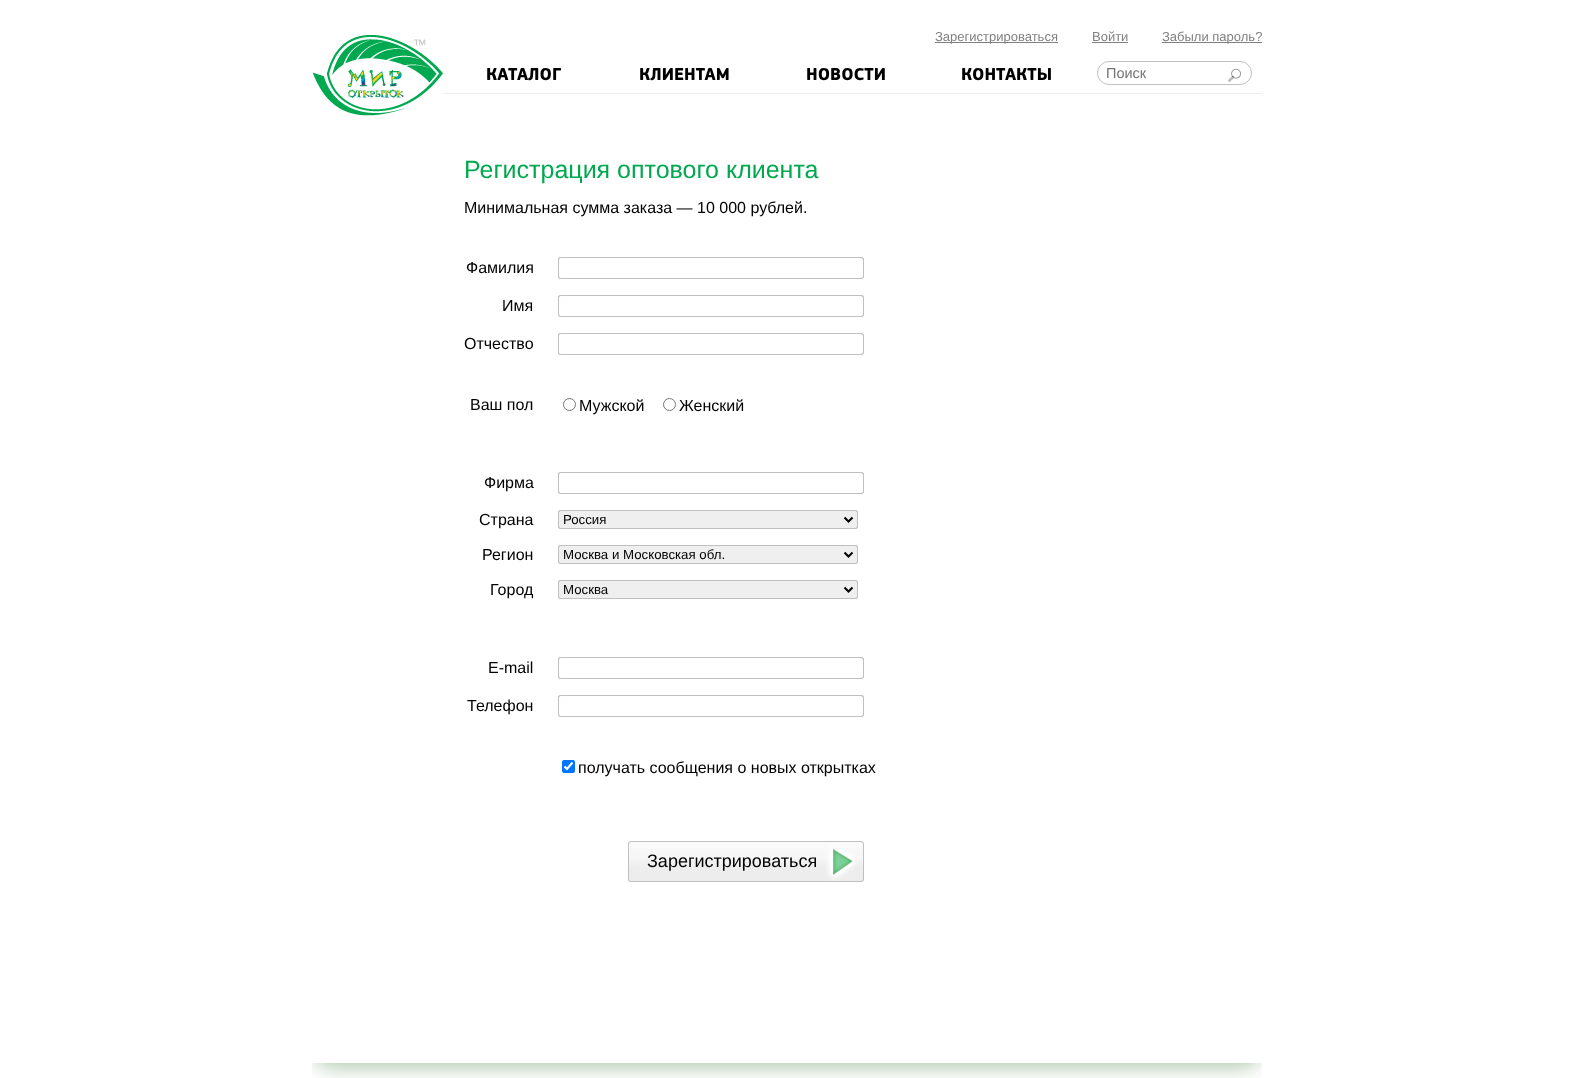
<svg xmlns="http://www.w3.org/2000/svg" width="1574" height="1078">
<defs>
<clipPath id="clip1"><rect x="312" y="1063" width="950" height="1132"/></clipPath>
</defs>
<rect width="100%" height="100%" fill="#fff"/>
<rect x="935" y="42" width="123" height="1" fill="#808080"/>
<text x="935" y="41" style="font-family:Liberation Sans;font-size:13px;fill:#808080">Зарегистрироваться</text>
<text x="1092" y="41" style="font-family:Liberation Sans;font-size:13px;fill:#808080">Войти</text>
<rect x="1092" y="42" width="36" height="1" fill="#808080"/>
<rect x="1162" y="42" width="100" height="1" fill="#808080"/>
<text x="1162" y="41" style="font-family:Liberation Sans;font-size:13px;fill:#808080">Забыли пароль?</text>
<image x="312" y="35" width="131" height="81" href="media/1.png"/>
<rect x="443" y="93" width="819" height="1" fill="#eee"/>
<text x="486" y="80" style="font-family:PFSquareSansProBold;font-size:18px;font-weight:bold;fill:#000">КАТАЛОГ</text>
<text x="639" y="80" style="font-family:PFSquareSansProBold;font-size:18px;font-weight:bold;fill:#000">КЛИЕНТАМ</text>
<text x="806" y="80" style="font-family:PFSquareSansProBold;font-size:18px;font-weight:bold;fill:#000">НОВОСТИ</text>
<text x="961" y="80" style="font-family:PFSquareSansProBold;font-size:18px;font-weight:bold;fill:#000">КОНТАКТЫ</text>
<rect x="1097.5" y="61.5" width="154" height="23" rx="11.5" fill="none" stroke="#c0c0c0"/>
<text x="1106" y="78" style="font-family:Liberation Sans;font-size:14.5px;fill:#757575">Поиск</text>
<image x="1228" y="68" width="13" height="15" href="media/2.png"/>
<text x="464" y="178" style="font-family:Liberation Sans;font-size:25px;fill:#00a84f">Регистрация оптового клиента</text>
<text x="464" y="213" style="font-family:Liberation Sans;font-size:16px;fill:#000">Минимальная сумма заказа — 10 000 рублей.</text>
<text x="466" y="273" style="font-family:Liberation Sans;font-size:16px;fill:#000">Фамилия</text>
<rect x="558" y="257" width="306" height="22" rx="3" fill="#0000004d" filter="blur(0.5px)"/>
<rect x="558.5" y="257.5" width="305" height="21" rx="2.5" fill="#fff" stroke="#c0c0c0"/>
<text x="502" y="311" style="font-family:Liberation Sans;font-size:16px;fill:#000">Имя</text>
<rect x="558" y="295" width="306" height="22" rx="3" fill="#0000004d" filter="blur(0.5px)"/>
<rect x="558.5" y="295.5" width="305" height="21" rx="2.5" fill="#fff" stroke="#c0c0c0"/>
<text x="464" y="349" style="font-family:Liberation Sans;font-size:16px;fill:#000">Отчество</text>
<rect x="558" y="333" width="306" height="22" rx="3" fill="#0000004d" filter="blur(0.5px)"/>
<rect x="558.5" y="333.5" width="305" height="21" rx="2.5" fill="#fff" stroke="#c0c0c0"/>
<text x="470" y="410" style="font-family:Liberation Sans;font-size:16px;fill:#000">Ваш пол</text>
<circle cx="569.5" cy="404.5" r="6" fill="none" stroke="#767676"/>
<text x="579" y="411" style="font-family:Liberation Sans;font-size:16px;fill:#000">Мужской</text>
<circle cx="669.5" cy="404.5" r="6" fill="none" stroke="#767676"/>
<text x="679" y="411" style="font-family:Liberation Sans;font-size:16px;fill:#000">Женский</text>
<text x="484" y="488" style="font-family:Liberation Sans;font-size:16px;fill:#000">Фирма</text>
<rect x="558" y="472" width="306" height="22" rx="3" fill="#0000004d" filter="blur(0.5px)"/>
<rect x="558.5" y="472.5" width="305" height="21" rx="2.5" fill="#fff" stroke="#c0c0c0"/>
<text x="479" y="525" style="font-family:Liberation Sans;font-size:16px;fill:#000">Страна</text>
<rect x="558" y="510" width="300" height="19" rx="3" fill="#0000004d" filter="blur(0.5px)"/>
<rect x="558.5" y="510.5" width="299" height="18" rx="2.5" fill="#efefef" stroke="#c0c0c0"/>
<path d="M844.5 517.5l4 4l4-4" fill="none" stroke="#000" stroke-width="2"/>
<text x="563" y="524" style="font-family:Liberation Sans;font-size:13.25px;fill:#000">Россия</text>
<text x="482" y="560" style="font-family:Liberation Sans;font-size:16px;fill:#000">Регион</text>
<rect x="558" y="545" width="300" height="19" rx="3" fill="#0000004d" filter="blur(0.5px)"/>
<rect x="558.5" y="545.5" width="299" height="18" rx="2.5" fill="#efefef" stroke="#c0c0c0"/>
<path d="M844.5 552.5l4 4l4-4" fill="none" stroke="#000" stroke-width="2"/>
<text x="563" y="559" style="font-family:Liberation Sans;font-size:13.25px;fill:#000">Москва и Московская обл.</text>
<text x="490" y="595" style="font-family:Liberation Sans;font-size:16px;fill:#000">Город</text>
<rect x="558" y="580" width="300" height="19" rx="3" fill="#0000004d" filter="blur(0.5px)"/>
<rect x="558.5" y="580.5" width="299" height="18" rx="2.5" fill="#efefef" stroke="#c0c0c0"/>
<path d="M844.5 587.5l4 4l4-4" fill="none" stroke="#000" stroke-width="2"/>
<text x="563" y="594" style="font-family:Liberation Sans;font-size:13.25px;fill:#000">Москва</text>
<text x="488" y="673" style="font-family:Liberation Sans;font-size:16px;fill:#000">E-mail</text>
<rect x="558" y="657" width="306" height="22" rx="3" fill="#0000004d" filter="blur(0.5px)"/>
<rect x="558.5" y="657.5" width="305" height="21" rx="2.5" fill="#fff" stroke="#c0c0c0"/>
<text x="467" y="711" style="font-family:Liberation Sans;font-size:16px;fill:#000">Телефон</text>
<rect x="558" y="695" width="306" height="22" rx="3" fill="#0000004d" filter="blur(0.5px)"/>
<rect x="558.5" y="695.5" width="305" height="21" rx="2.5" fill="#fff" stroke="#c0c0c0"/>
<rect x="562" y="760" width="13" height="13" rx="2" fill="#0075ff"/>
<path d="M564.5 766.5l2.5 2.5l5.5-6.5" fill="none" stroke="#fff" stroke-width="2.1"/>
<text x="578" y="773" style="font-family:Liberation Sans;font-size:16px;fill:#000">получать сообщения о новых открытках</text>
<rect x="628" y="841" width="236" height="41" rx="3" fill="#00000033" filter="blur(0.5px)"/>
<image x="628" y="841" width="236" height="40" href="media/3.png"/>
<rect x="628.5" y="841.5" width="235" height="40" rx="2.5" fill="none" stroke="#c0c0c0"/>
<text x="647" y="867" style="font-family:Liberation Sans;font-size:18px;fill:#000">Зарегистрироваться</text>
<g clip-path="url(#clip1)">
<rect x="312" y="1025" width="950" height="43" rx="21.5" fill="#004e004d" filter="blur(10px)"/>
</g>
</svg>
